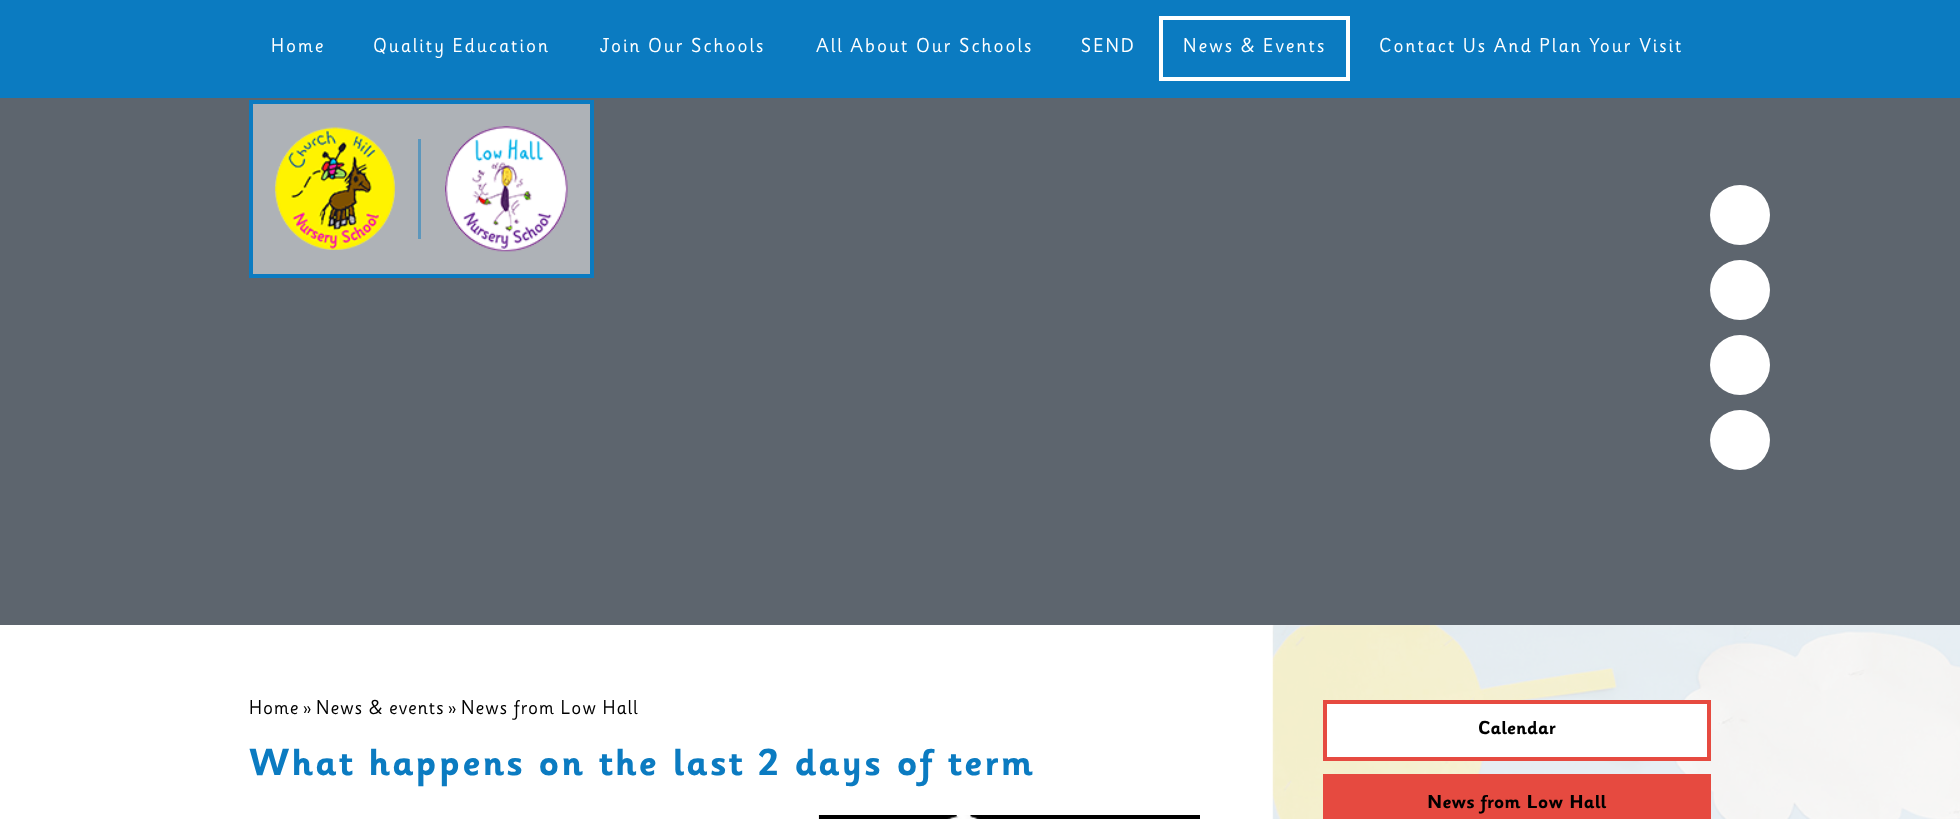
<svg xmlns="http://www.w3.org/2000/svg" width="1960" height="819">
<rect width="100%" height="100%" fill="#fff"/>
<rect width="1960" height="98" fill="#0b7bc1"/>
<text x="271" y="52" style="font-family:'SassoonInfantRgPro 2';font-size:20px;letter-spacing:2px;fill:#fff">Home</text>
<text x="373" y="52" style="font-family:'SassoonInfantRgPro 2';font-size:20px;letter-spacing:2px;fill:#fff">Quality Education</text>
<text x="600" y="52" style="font-family:'SassoonInfantRgPro 2';font-size:20px;letter-spacing:2px;fill:#fff">Join Our Schools</text>
<text x="816" y="52" style="font-family:'SassoonInfantRgPro 2';font-size:20px;letter-spacing:2px;fill:#fff">All About Our Schools</text>
<text x="1081" y="52" style="font-family:'SassoonInfantRgPro 2';font-size:20px;letter-spacing:2px;fill:#fff">SEND</text>
<rect x="1161" y="18" width="187" height="61" fill="none" stroke="#fff" stroke-width="4"/>
<text x="1183" y="52" style="font-family:'SassoonInfantRgPro 2';font-size:20px;letter-spacing:2px;fill:#fff">News &amp; Events</text>
<text x="1379" y="52" style="font-family:'SassoonInfantRgPro 2';font-size:20px;letter-spacing:2px;fill:#fff">Contact Us And Plan Your Visit</text>
<rect y="98" width="1960" height="527" fill="#5d656e"/>
<circle cx="1740" cy="215" r="30" fill="#fff"/>
<circle cx="1740" cy="290" r="30" fill="#fff"/>
<circle cx="1740" cy="365" r="30" fill="#fff"/>
<circle cx="1740" cy="440" r="30" fill="#fff"/>
<rect x="251" y="102" width="341" height="174" fill="#aeb2b7" stroke="#0b7bc1" stroke-width="4"/>
<image x="275" y="127" width="120" height="123" href="media/1.png"/>
<rect x="418" y="139" width="3" height="100" fill="#5d97bc"/>
<image x="445" y="126" width="123" height="126" href="media/2.png"/>
<text x="249" y="714" style="font-family:'SassoonInfantRgPro 2';font-size:20px;letter-spacing:1px;fill:#000">Home</text>
<text x="303" y="714" style="font-family:'SassoonInfantRgPro 2';font-size:20px;fill:#000">»</text>
<text x="316" y="714" style="font-family:'SassoonInfantRgPro 2';font-size:20px;letter-spacing:1px;fill:#000">News &amp; events</text>
<text x="448" y="714" style="font-family:'SassoonInfantRgPro 2';font-size:20px;fill:#000">»</text>
<text x="461" y="714" style="font-family:'SassoonInfantRgPro 2';font-size:20px;letter-spacing:1px;fill:#000">News from Low Hall</text>
<text x="249" y="775" style="font-family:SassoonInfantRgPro;font-size:37.5px;letter-spacing:1.9px;fill:#0b7bc1">What happens on the last 2 days of term</text>
<image x="818" y="815" width="382" height="4" href="media/3.png"/>
<image x="1272" y="625" width="688" height="194" href="media/4.png"/>
<rect x="1325" y="702" width="384" height="57" fill="#fff" stroke="#e64a40" stroke-width="4"/>
<text x="1478" y="734" style="font-family:SassoonInfantRgPro;font-size:18.75px;fill:#000">Calendar</text>
<rect x="1323" y="774" width="388" height="45" fill="#e64a40"/>
<text x="1427" y="808" style="font-family:SassoonInfantRgPro;font-size:18.75px;fill:#000">News from Low Hall</text>
</svg>
